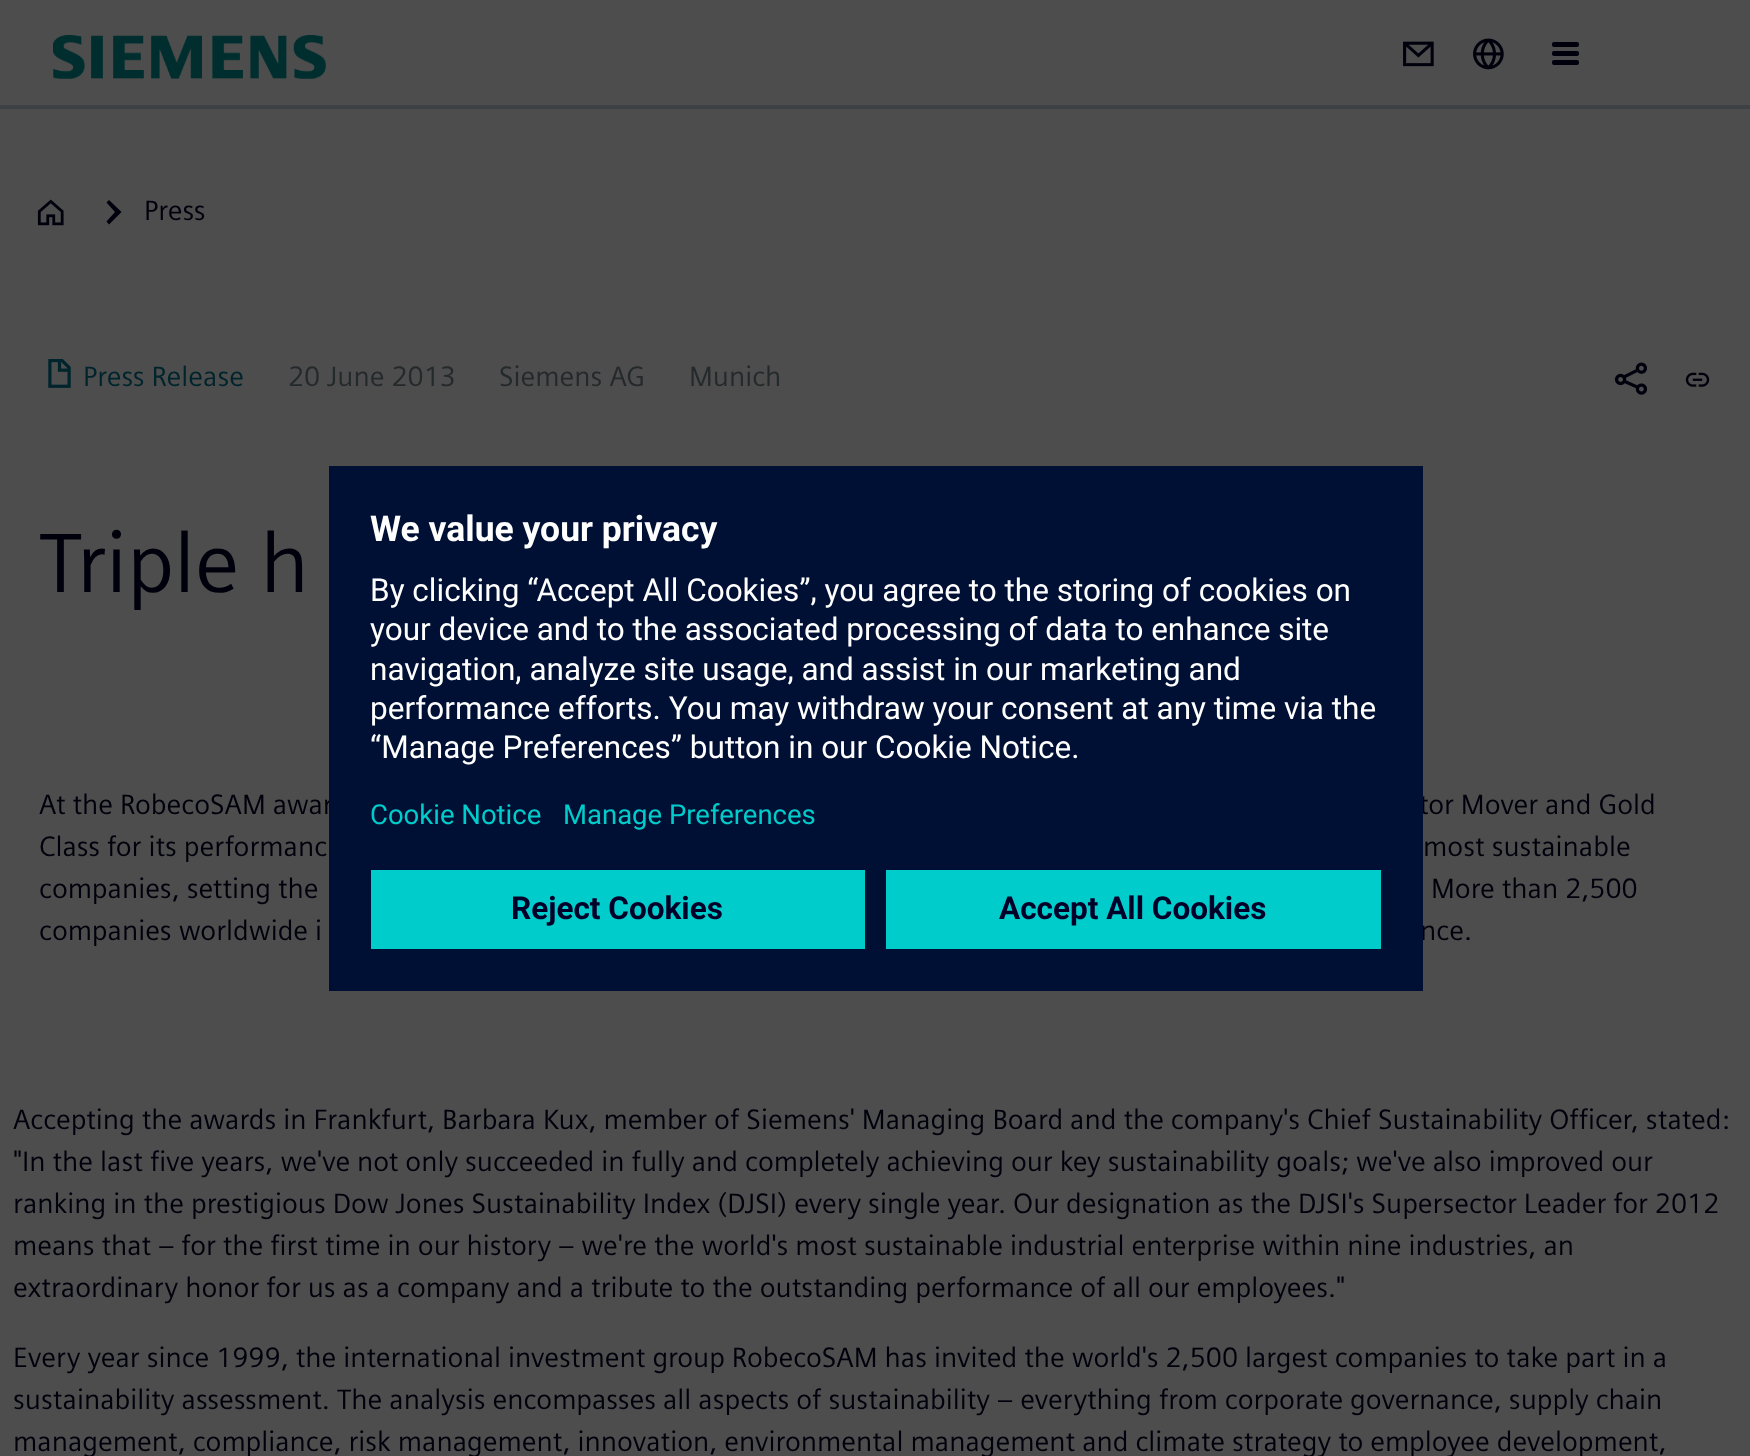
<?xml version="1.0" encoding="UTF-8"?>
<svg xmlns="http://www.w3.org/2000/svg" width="1750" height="1456">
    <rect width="100%" height="100%" fill="#4D4D4D"/>
    <rect x="0" y="105" width="1750" height="4" fill="#3E4144"/>
    <image x="53" y="35" width="273" height="44" href="img_01.png"/>
    <image x="1403" y="41" width="31" height="26" href="img_02.png"/>
    <image x="1473" y="38" width="31" height="32" href="img_03.png"/>
    <rect x="1552" y="42" width="27" height="5" rx="2" fill="#00000C"/>
    <rect x="1552" y="51" width="27" height="5" rx="2" fill="#00000C"/>
    <rect x="1552" y="60" width="27" height="5" rx="2" fill="#00000C"/>
    <image x="37" y="199" width="27" height="27" href="img_04.png"/>
    <path d="M 121.5 212 L 109 200 L 106.5 202.5 L 115 212 L 106.5 221.5 L 109 224.5 Z" fill="#00000C"/>
    <text x="144" y="220" font-family="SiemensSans" font-size="28" fill="#00000C">Press</text>
    <image x="48" y="359" width="23" height="29" href="img_05.png"/>
    <text x="83" y="386" font-family="SiemensSans" font-size="28" fill="#00242C">Press Release</text>
    <text x="288" y="386" font-family="SiemensSans" font-size="28" fill="#24292C">20 June 2013</text>
    <text x="499" y="386" font-family="SiemensSans" font-size="28" fill="#24292C">Siemens AG</text>
    <text x="689" y="386" font-family="SiemensSans" font-size="28" fill="#24292C">Munich</text>
    <image x="1614" y="362" width="33" height="33" href="img_06.png"/>
    <image x="1685" y="372" width="25" height="15" href="img_07.png"/>
    <text x="39" y="592" font-family="SiemensSans" font-size="84" fill="#00000C">Triple h</text>
    <text x="39" y="814" font-family="SiemensSans" font-size="28" fill="#00000C">At the RobecoSAM awar</text>
    <text x="1419" y="814" font-family="SiemensSans" font-size="28" fill="#00000C">tor Mover and Gold</text>
    <text x="39" y="856" font-family="SiemensSans" font-size="28" fill="#00000C">Class for its performanc</text>
    <text x="1423" y="856" font-family="SiemensSans" font-size="28" fill="#00000C">most sustainable</text>
    <text x="39" y="898" font-family="SiemensSans" font-size="28" fill="#00000C">companies, setting the</text>
    <text x="1431" y="898" font-family="SiemensSans" font-size="28" fill="#00000C">More than 2,500</text>
    <text x="39" y="940" font-family="SiemensSans" font-size="28" fill="#00000C">companies worldwide i</text>
    <text x="1420" y="940" font-family="SiemensSans" font-size="28" fill="#00000C">nce.</text>
    <text font-family="SiemensSans" font-size="28" fill="#00000C">
        <tspan x="13" y="1129">Accepting the awards in Frankfurt, Barbara Kux, member of Siemens' Managing Board and the company's Chief Sustainability Officer, stated:</tspan>
        <tspan x="13" y="1171">"In the last five years, we've not only succeeded in fully and completely achieving our key sustainability goals; we've also improved our</tspan>
        <tspan x="13" y="1213">ranking in the prestigious Dow Jones Sustainability Index (DJSI) every single year. Our designation as the DJSI's Supersector Leader for 2012</tspan>
        <tspan x="13" y="1255">means that – for the first time in our history – we're the world's most sustainable industrial enterprise within nine industries, an</tspan>
        <tspan x="13" y="1297">extraordinary honor for us as a company and a tribute to the outstanding performance of all our employees."</tspan>
    </text>
    <text font-family="SiemensSans" font-size="28" fill="#00000C">
        <tspan x="13" y="1367">Every year since 1999, the international investment group RobecoSAM has invited the world's 2,500 largest companies to take part in a</tspan>
        <tspan x="13" y="1409">sustainability assessment. The analysis encompasses all aspects of sustainability – everything from corporate governance, supply chain</tspan>
        <tspan x="13" y="1451">management, compliance, risk management, innovation, environmental management and climate strategy to employee development,</tspan>
    </text>
    <rect x="329" y="466" width="1094" height="525" fill="#001034"/>
    <text x="370" y="541" font-family="Roboto" font-size="35.5" font-weight="700" fill="#FFFFFF">We value your privacy</text>
    <text font-family="Roboto" font-size="31.5" fill="#FFFFFF">
        <tspan x="370" y="601">By clicking “Accept All Cookies”, you agree to the storing of cookies on</tspan>
        <tspan x="370" y="640">your device and to the associated processing of data to enhance site</tspan>
        <tspan x="370" y="680">navigation, analyze site usage, and assist in our marketing and</tspan>
        <tspan x="370" y="719">performance efforts. You may withdraw your consent at any time via the</tspan>
        <tspan x="370" y="758">“Manage Preferences” button in our Cookie Notice.</tspan>
    </text>
    <text x="370" y="824" font-family="Roboto" font-size="27.5" fill="#00CCCC">Cookie Notice</text>
    <text x="563" y="824" font-family="Roboto" font-size="27.5" fill="#00CCCC">Manage Preferences</text>
    <rect x="371" y="870" width="494" height="79" fill="#00CCCC"/>
    <text x="511" y="919" font-family="Roboto" font-size="31.5" font-weight="700" fill="#000028">Reject Cookies</text>
    <rect x="886" y="870" width="495" height="79" fill="#00CCCC"/>
    <text x="999" y="919" font-family="Roboto" font-size="31.5" font-weight="700" fill="#000028">Accept All Cookies</text>
</svg>
